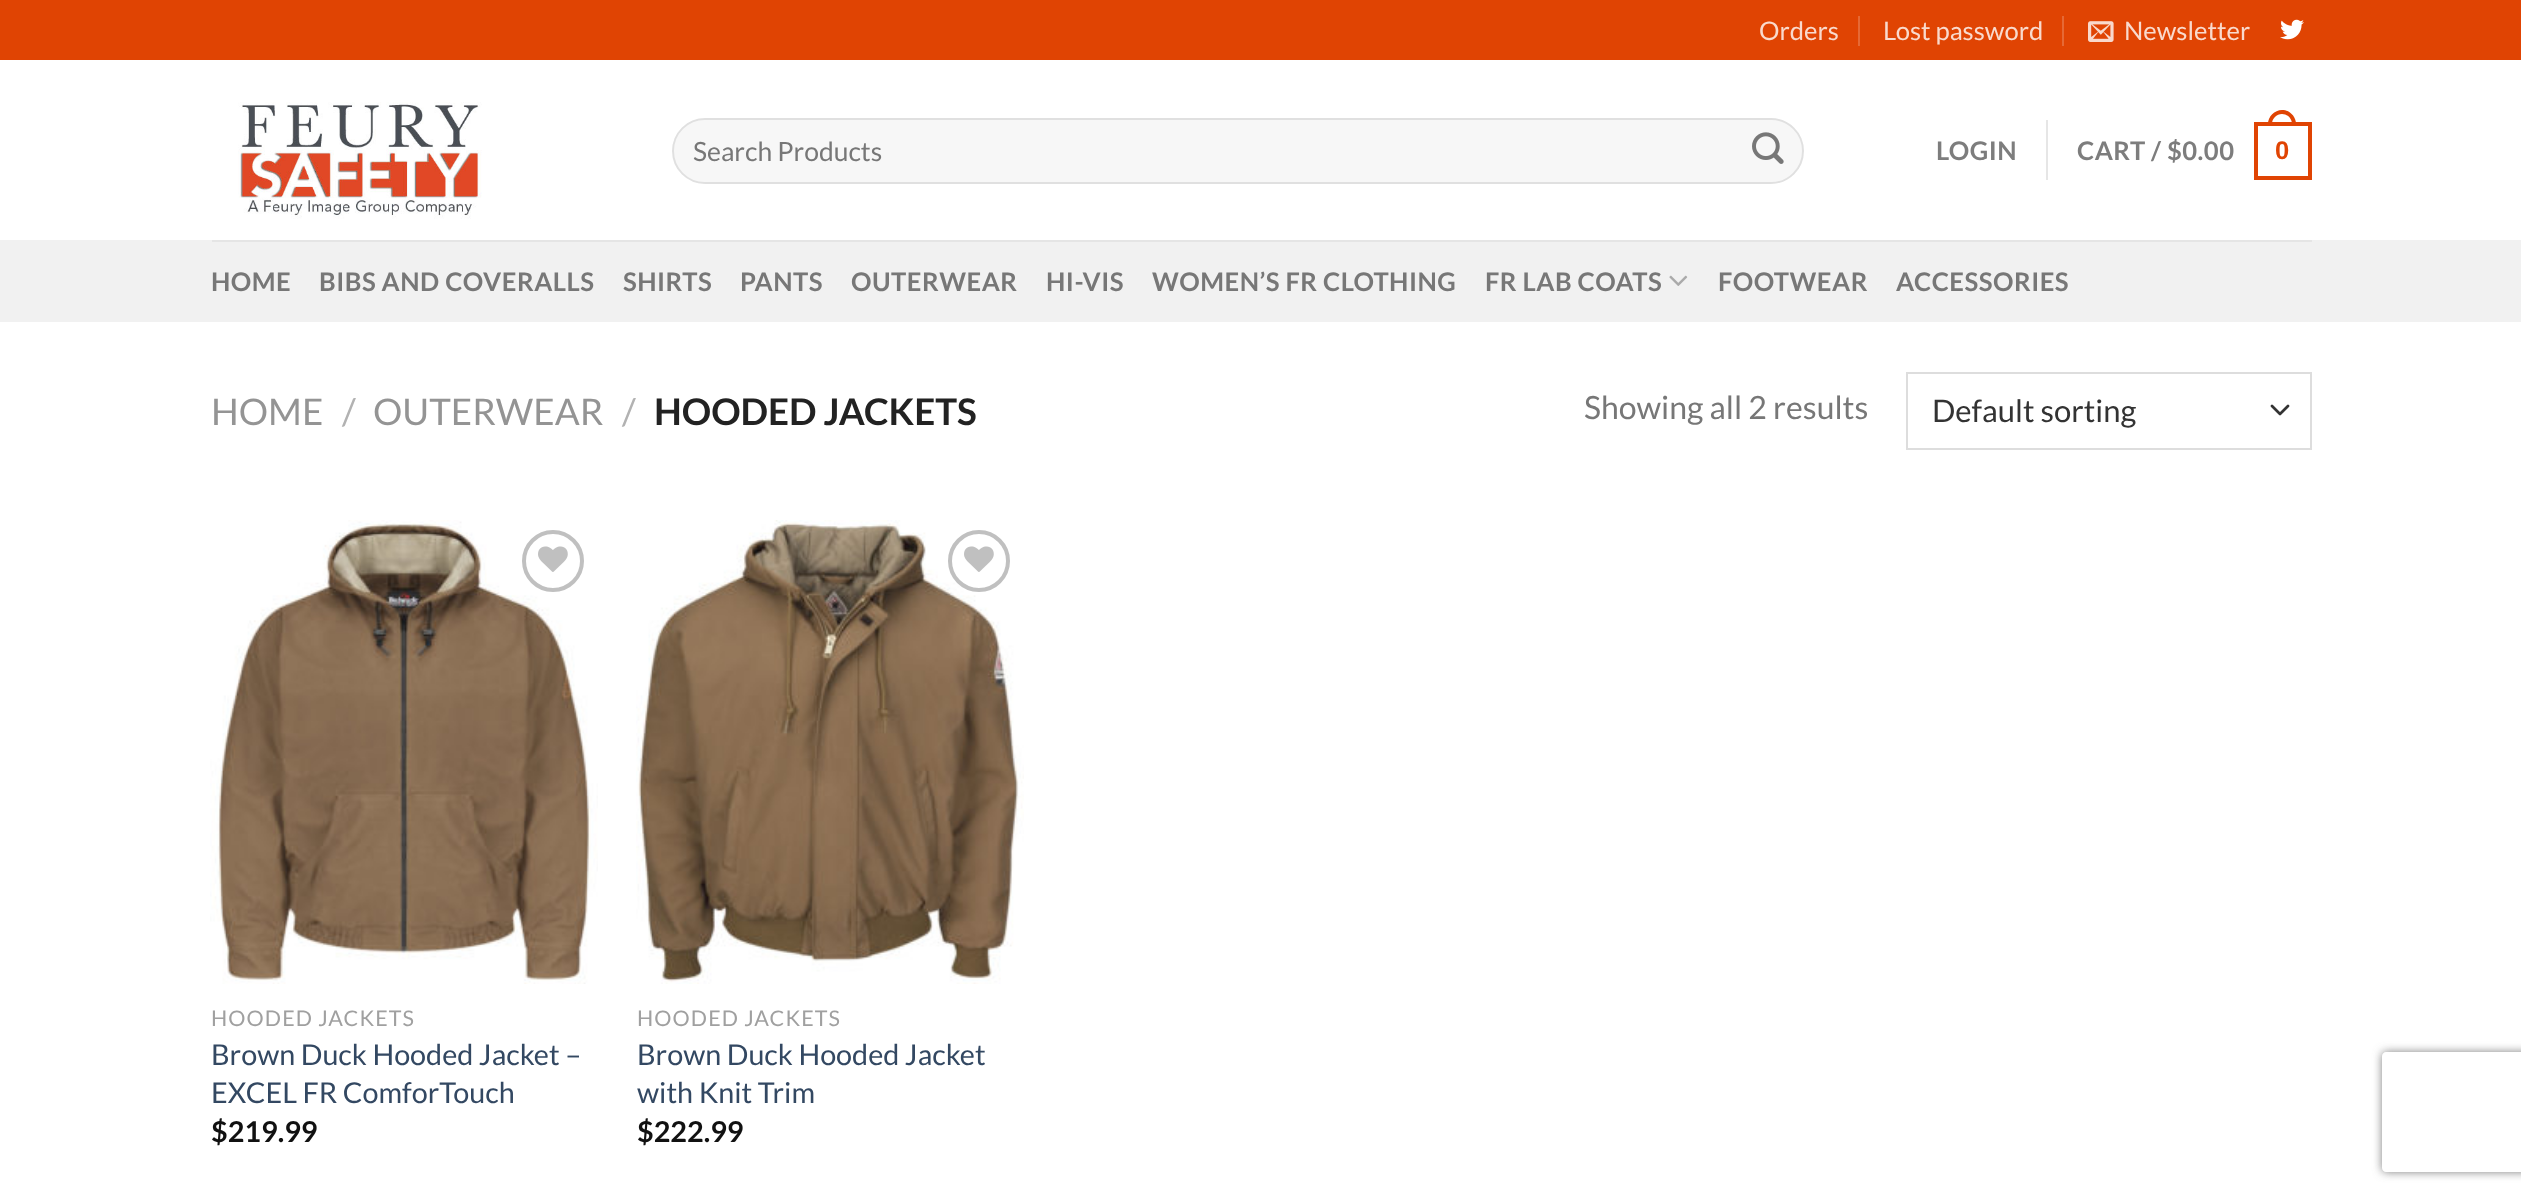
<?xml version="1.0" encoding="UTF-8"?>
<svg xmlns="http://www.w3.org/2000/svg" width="2521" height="1199">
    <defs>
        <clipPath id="clip1"><path d="M 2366 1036 H 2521 V 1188 H 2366 Z M 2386 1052 H 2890 C 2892 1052 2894 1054 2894 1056 V 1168 C 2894 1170 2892 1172 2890 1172 H 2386 C 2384 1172 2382 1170 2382 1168 V 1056 C 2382 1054 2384 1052 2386 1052 Z" clip-rule="evenodd"/></clipPath>
        <filter id="blur1" x="-50%" y="-200%" width="200%" height="500%"><feGaussianBlur stdDeviation="5"/></filter>
    </defs>
    <rect width="100%" height="100%" fill="#FFFFFF"/>
    <rect x="0" y="0" width="2521" height="60" fill="#E04403"/>
    <text x="1759" y="40" font-family="Lato" font-size="25.6" fill="#F9DACD">Orders</text>
    <rect x="1858" y="16" width="2" height="30" fill="#E66935"/>
    <text x="1883" y="40" font-family="Lato" font-size="25.6" fill="#F9DACD">Lost password</text>
    <rect x="2062" y="16" width="2" height="30" fill="#E66935"/>
    <image x="2088" y="21" width="26" height="21" href="img_01.png"/>
    <text x="2124" y="40" font-family="Lato" font-size="25.6" fill="#F9DACD">Newsletter</text>
    <image x="2280" y="19" width="24" height="21" href="img_02.png"/>
    <image x="238" y="102" width="244" height="117" href="img_03.png"/>
    <rect x="672" y="118" width="1132" height="66" rx="33" fill="#F7F7F7"/>
    <rect x="673" y="119" width="1130" height="64" rx="32" fill="none" stroke="#000000" stroke-opacity="0.09" stroke-width="2"/>
    <text x="693" y="161" font-family="Lato" font-size="26.5" fill="#777777">Search Products</text>
    <image x="1752" y="132" width="32" height="32" href="img_04.png"/>
    <text x="1936" y="160" font-family="Lato" font-size="25.6" font-weight="700" letter-spacing="0.5" fill="#7D7D7D">LOGIN</text>
    <rect x="2046" y="120" width="2" height="60" fill="#E6E6E6"/>
    <text x="2077" y="160" font-family="Lato" font-size="25.6" font-weight="700" letter-spacing="0.5" fill="#7D7D7D">CART / $0.00</text>
    <rect x="2256" y="124" width="54" height="54" fill="none" stroke="#E04403" stroke-width="4"/>
    <path d="M 2282 110 C 2289.5 110 2296 116.5 2296 124 V 126 H 2268 V 124 C 2268 116.5 2274.5 110 2282 110 Z M 2282 114 C 2287.5 114 2292 118.5 2292 124 V 126 H 2272 V 124 C 2272 118.5 2276.5 114 2282 114 Z" fill="#E04403" fill-rule="evenodd"/>
    <text x="2275" y="159" font-family="Liberation Sans" font-size="25.6" font-weight="700" letter-spacing="0.5" fill="#E04403">0</text>
    <rect x="0" y="240" width="2521" height="82" fill="#F1F1F1"/>
    <rect x="212" y="240" width="2100" height="2" fill="#E5E5E5"/>
    <text x="211" y="291" font-family="Lato" font-size="25.6" font-weight="700" letter-spacing="0.5" fill="#777777">HOME</text>
    <text x="319" y="291" font-family="Lato" font-size="25.6" font-weight="700" letter-spacing="0.5" fill="#777777">BIBS AND COVERALLS</text>
    <text x="623" y="291" font-family="Lato" font-size="25.6" font-weight="700" letter-spacing="0.5" fill="#777777">SHIRTS</text>
    <text x="740" y="291" font-family="Lato" font-size="25.6" font-weight="700" letter-spacing="0.5" fill="#777777">PANTS</text>
    <text x="851" y="291" font-family="Lato" font-size="25.6" font-weight="700" letter-spacing="0.5" fill="#777777">OUTERWEAR</text>
    <text x="1046" y="291" font-family="Lato" font-size="25.6" font-weight="700" letter-spacing="0.5" fill="#777777">HI-VIS</text>
    <text x="1152" y="291" font-family="Lato" font-size="25.6" font-weight="700" letter-spacing="0.5" fill="#777777">WOMEN’S FR CLOTHING</text>
    <text x="1485" y="291" font-family="Lato" font-size="25.6" font-weight="700" letter-spacing="0.5" fill="#777777">FR LAB COATS</text>
    <image x="1669" y="275" width="19" height="11" href="img_05.png"/>
    <text x="1718" y="291" font-family="Lato" font-size="25.6" font-weight="700" letter-spacing="0.5" fill="#777777">FOOTWEAR</text>
    <text x="1896" y="291" font-family="Lato" font-size="25.6" font-weight="700" letter-spacing="0.5" fill="#777777">ACCESSORIES</text>
    <text x="211" y="425" font-family="Lato" font-size="36.75" fill="#949494">HOME</text>
    <text x="342" y="425" font-family="Lato" font-size="36.75" fill="#B2B2B2">/</text>
    <text x="373" y="425" font-family="Lato" font-size="36.75" fill="#949494">OUTERWEAR</text>
    <text x="622" y="425" font-family="Lato" font-size="36.75" fill="#B2B2B2">/</text>
    <text x="654" y="425" font-family="Lato" font-size="36.75" font-weight="700" fill="#222222">HOODED JACKETS</text>
    <text x="1584" y="419" font-family="Lato" font-size="32" fill="#777777">Showing all 2 results</text>
    <path d="M 2272 406 L 2280 414 L 2288 406" fill="none" stroke="#333333" stroke-width="2.7" stroke-linecap="round" stroke-linejoin="round"/>
    <rect x="1907" y="373" width="404" height="76" fill="none" stroke="#DDDDDD" stroke-width="2"/>
    <text x="1932" y="422" font-family="Lato" font-size="31" fill="#333333">Default sorting</text>
    <image x="210" y="520" width="388" height="464" href="img_06.png"/>
    <circle cx="553" cy="561" r="29" fill="none" stroke="#C0C0C0" stroke-width="4"/>
    <image x="538" y="546" width="30" height="26" href="img_07.png"/>
    <text x="211" y="1026" font-family="Lato" font-size="21.5" letter-spacing="1.1" fill="#A0A0A0">HOODED JACKETS</text>
    <text font-family="Lato" font-size="28.75" fill="#334862">
        <tspan x="211" y="1065">Brown Duck Hooded Jacket –</tspan>
        <tspan x="211" y="1103">EXCEL FR ComforTouch</tspan>
    </text>
    <text x="211" y="1142" font-family="Lato" font-size="28.75" font-weight="700" fill="#111111">$219.99</text>
    <image x="636" y="520" width="388" height="464" href="img_08.png"/>
    <circle cx="979" cy="561" r="29" fill="none" stroke="#C0C0C0" stroke-width="4"/>
    <image x="964" y="546" width="30" height="26" href="img_07.png"/>
    <text x="637" y="1026" font-family="Lato" font-size="21.5" letter-spacing="1.1" fill="#A0A0A0">HOODED JACKETS</text>
    <text font-family="Lato" font-size="28.75" fill="#334862">
        <tspan x="637" y="1065">Brown Duck Hooded Jacket</tspan>
        <tspan x="637" y="1103">with Knit Trim</tspan>
    </text>
    <text x="637" y="1142" font-family="Lato" font-size="28.75" font-weight="700" fill="#111111">$222.99</text>
    <g clip-path="url(#clip1)">
        <rect x="2382" y="1052" width="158" height="120" rx="4" fill="#808080" filter="url(#blur1)"/>
    </g>
</svg>
